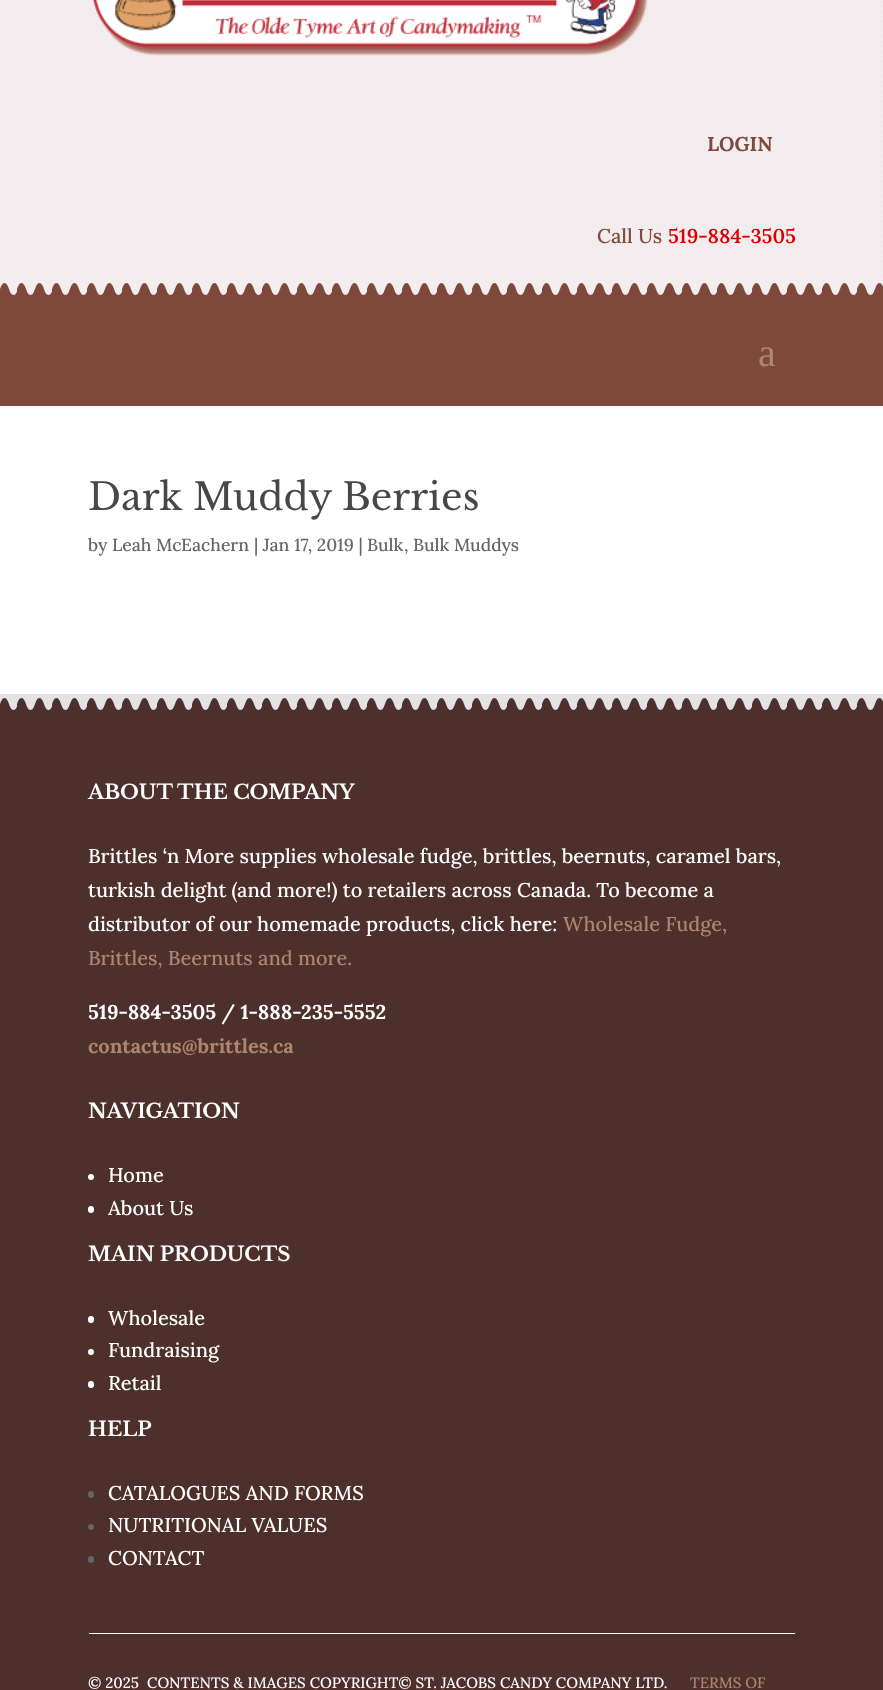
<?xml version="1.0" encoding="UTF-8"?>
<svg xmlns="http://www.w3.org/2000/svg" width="883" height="1690">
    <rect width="100%" height="100%" fill="#FFFFFF"/>
    <rect x="0" y="0" width="883" height="279" fill="#F3EDEF"/>
    <image x="2" y="1" width="881" height="276" href="img_01.png"/>
    <image x="92" y="0" width="556" height="56" href="img_02.png"/>
    <text x="707" y="151" font-family="Lora" font-size="20" font-weight="700" fill="#7E4A3B">LOGIN</text>
    <text x="597" y="243" font-family="Lora" font-size="20" font-weight="500" fill="#7E4A3B">Call Us</text>
    <text x="668" y="243" font-family="Lora" font-size="20" font-weight="600" fill="#DE0000">519-884-3505</text>
    <rect x="0" y="283" width="883" height="123" fill="#7E493B"/>
    <image x="0" y="279" width="883" height="16" href="img_03.png"/>
    <text x="758" y="366" font-family="Liberation Serif" font-size="40" fill="#AE856E">a</text>
    <text x="88" y="510" font-family="Libre Baskerville" font-size="37.5" fill="#484747">Dark Muddy Berries</text>
    <text x="88" y="551" font-family="Lora" font-size="17.5" font-weight="500" fill="#646565">by</text>
    <text x="112" y="551" font-family="Lora" font-size="17.5" font-weight="500" fill="#646565">Leah McEachern</text>
    <text x="254" y="551" font-family="Lora" font-size="17.5" font-weight="500" fill="#646565">| Jan 17, 2019 |</text>
    <text x="367" y="551" font-family="Lora" font-size="17.5" font-weight="500" fill="#646565">Bulk</text>
    <text x="404" y="551" font-family="Lora" font-size="17.5" font-weight="500" fill="#646565">,</text>
    <text x="413" y="551" font-family="Lora" font-size="17.5" font-weight="500" fill="#646565">Bulk Muddys</text>
    <rect x="0" y="698" width="883" height="992" fill="#4D2F2C"/>
    <image x="0" y="694" width="883" height="16" href="img_04.png"/>
    <text x="88" y="799" font-family="Libre Baskerville" font-size="20" font-weight="700" fill="#FFFFFF">ABOUT THE COMPANY</text>
    <text font-family="Lora" font-size="20" font-weight="500" fill="#FFFFFF">
        <tspan x="88" y="863">Brittles ‘n More supplies wholesale fudge, brittles, beernuts, caramel bars,</tspan>
        <tspan x="88" y="897">turkish delight (and more!) to retailers across Canada. To become a</tspan>
        <tspan x="88" y="931">distributor of our homemade products, click here:</tspan>
    </text>
    <text x="563" y="931" font-family="Lora" font-size="20" font-weight="500" fill="#AE856E">Wholesale Fudge,</text>
    <text x="88" y="965" font-family="Lora" font-size="20" font-weight="500" fill="#AE856E">Brittles, Beernuts and more.</text>
    <text x="88" y="1019" font-family="Lora" font-size="20" font-weight="700" fill="#FFFFFF">519-884-3505 / 1-888-235-5552</text>
    <text x="88" y="1053" font-family="Lora" font-size="20" font-weight="700" fill="#AE856E">contactus@brittles.ca</text>
    <text x="88" y="1118" font-family="Libre Baskerville" font-size="20" font-weight="700" fill="#FFFFFF">NAVIGATION</text>
    <circle cx="91" cy="1177" r="3" fill="#FFFFFF"/>
    <text x="108" y="1182" font-family="Lora" font-size="20" font-weight="500" fill="#FFFFFF">Home</text>
    <rect x="88" y="1206" width="6" height="7" rx="3" fill="#FFFFFF"/>
    <text x="108" y="1215" font-family="Lora" font-size="20" font-weight="500" fill="#FFFFFF">About Us</text>
    <text x="88" y="1261" font-family="Libre Baskerville" font-size="20" font-weight="700" fill="#FFFFFF">MAIN PRODUCTS</text>
    <rect x="88" y="1316" width="6" height="7" rx="3" fill="#FFFFFF"/>
    <text x="108" y="1325" font-family="Lora" font-size="20" font-weight="500" fill="#FFFFFF">Wholesale</text>
    <circle cx="91" cy="1352" r="3" fill="#FFFFFF"/>
    <text x="108" y="1357" font-family="Lora" font-size="20" font-weight="500" fill="#FFFFFF">Fundraising</text>
    <rect x="88" y="1381" width="6" height="7" rx="3" fill="#FFFFFF"/>
    <text x="108" y="1390" font-family="Lora" font-size="20" font-weight="500" fill="#FFFFFF">Retail</text>
    <text x="88" y="1436" font-family="Libre Baskerville" font-size="20" font-weight="700" fill="#FFFFFF">HELP</text>
    <rect x="88" y="1491" width="6" height="7" rx="3" fill="#646565"/>
    <text x="108" y="1500" font-family="Lora" font-size="20" font-weight="500" fill="#FFFFFF">CATALOGUES AND FORMS</text>
    <circle cx="91" cy="1527" r="3" fill="#646565"/>
    <text x="108" y="1532" font-family="Lora" font-size="20" font-weight="500" fill="#FFFFFF">NUTRITIONAL VALUES</text>
    <rect x="88" y="1556" width="6" height="7" rx="3" fill="#646565"/>
    <text x="108" y="1565" font-family="Lora" font-size="20" font-weight="500" fill="#FFFFFF">CONTACT</text>
    <rect x="89" y="1633" width="706" height="1" fill="#FFFFFF"/>
    <text x="88" y="1688" font-family="Lora" font-size="15" font-weight="500" fill="#FFFFFF">© 2025</text>
    <text x="147" y="1688" font-family="Lora" font-size="15" font-weight="500" fill="#FFFFFF">CONTENTS &amp; IMAGES COPYRIGHT© ST. JACOBS CANDY COMPANY LTD.</text>
    <text x="690" y="1688" font-family="Lora" font-size="15" font-weight="500" fill="#AE856E">TERMS OF</text>
</svg>
